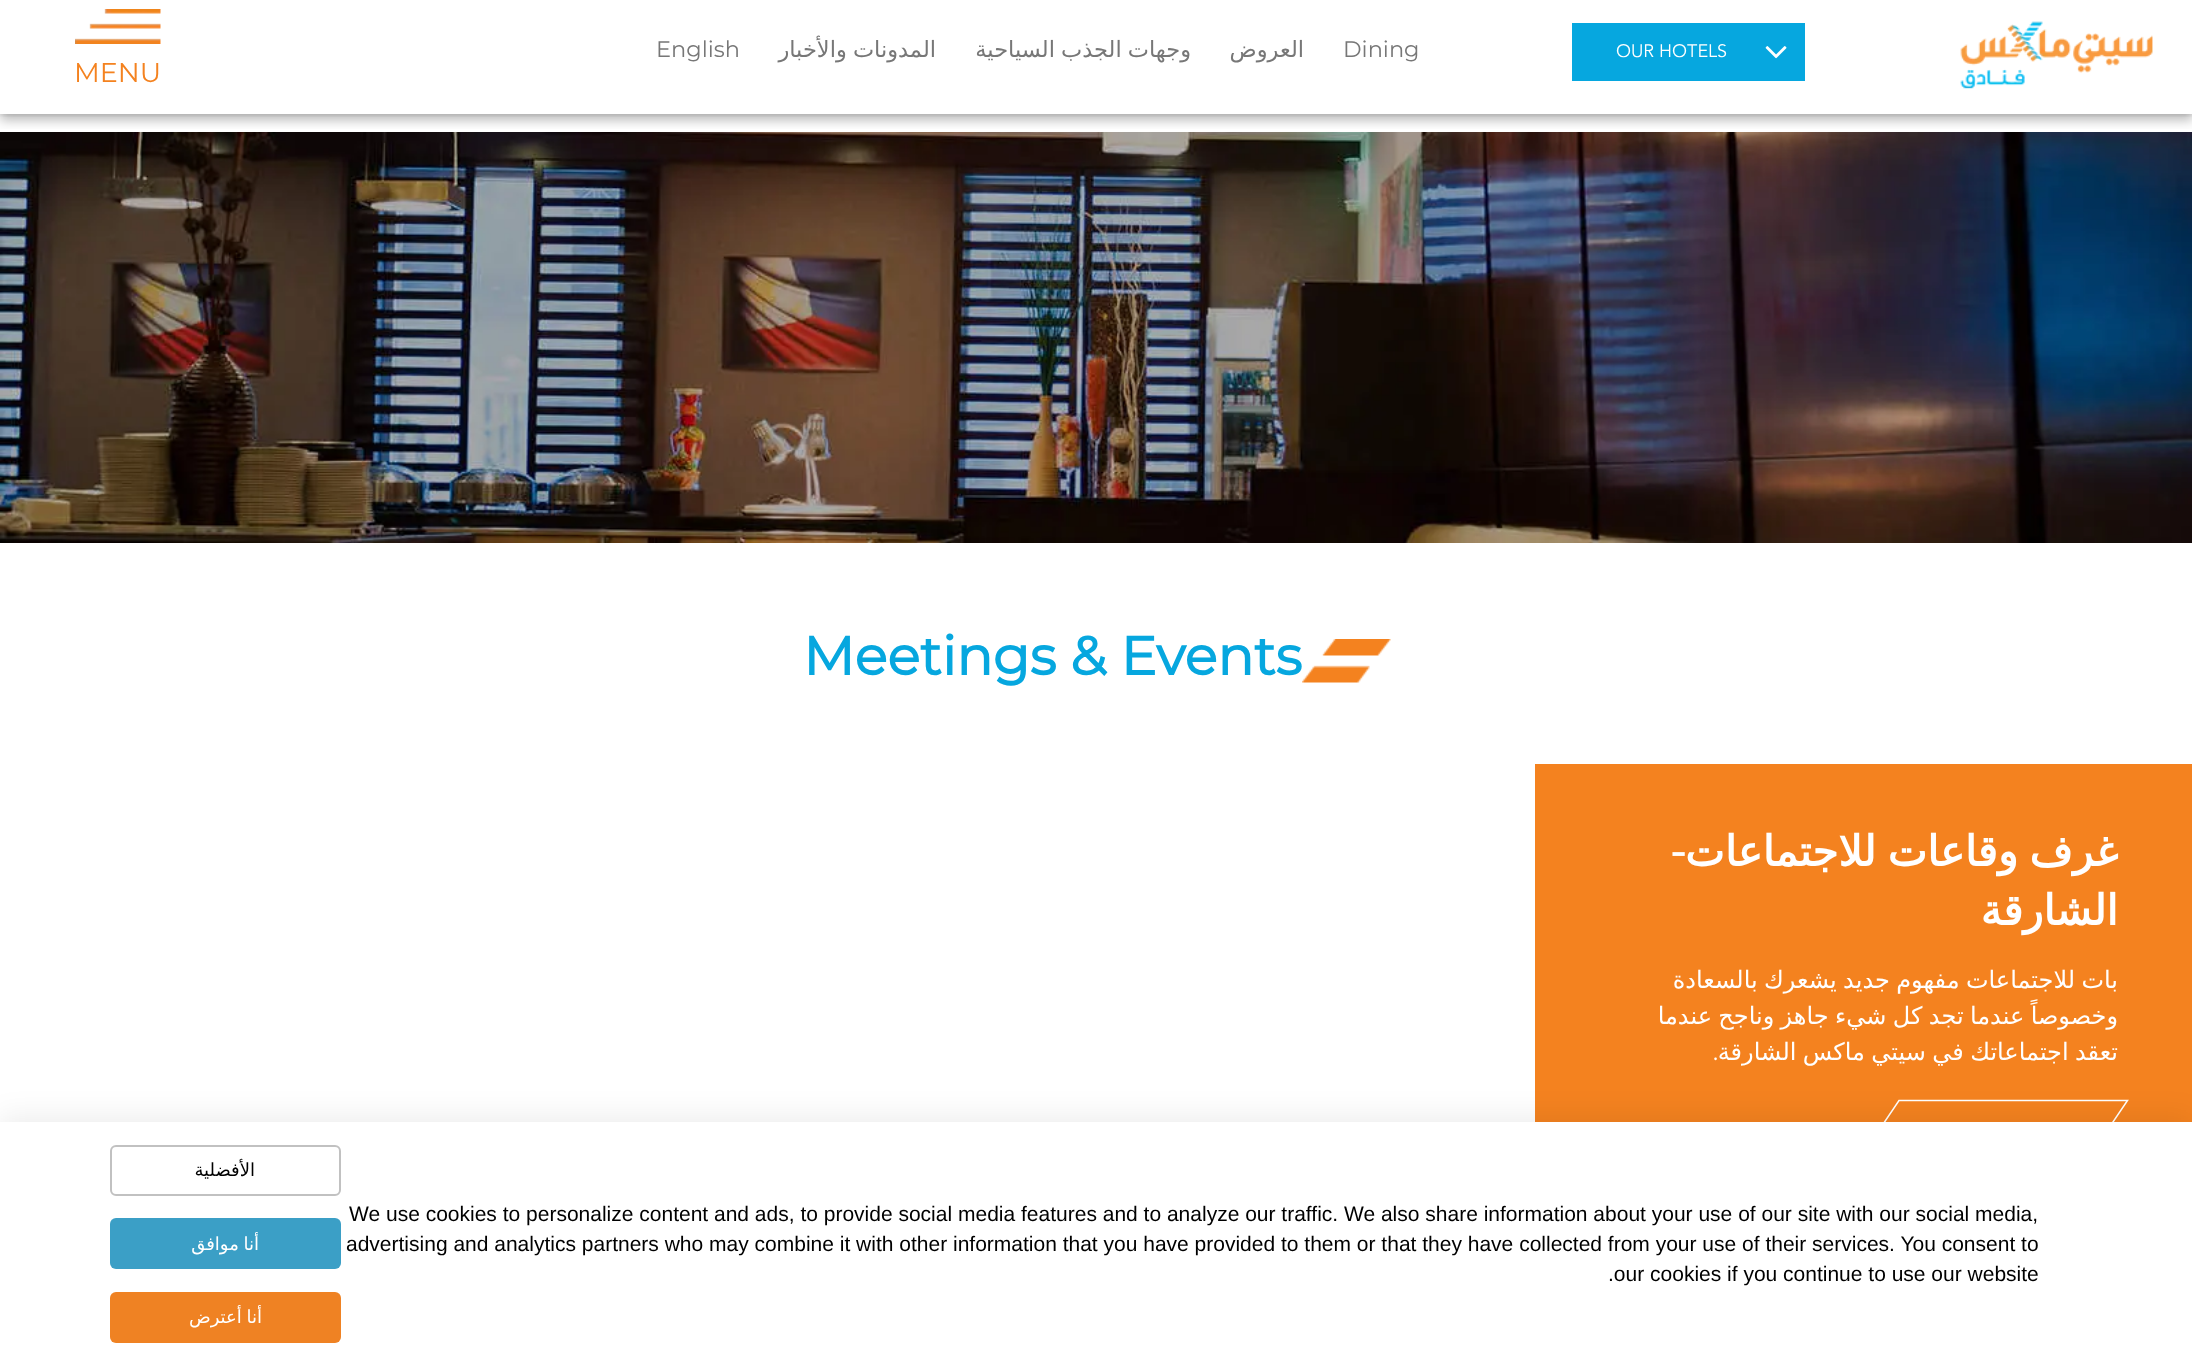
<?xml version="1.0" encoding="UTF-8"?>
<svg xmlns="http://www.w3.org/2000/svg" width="2192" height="1365">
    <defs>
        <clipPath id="clip1"><rect x="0" y="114" width="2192" height="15"/></clipPath>
        <filter id="blur1" x="-50%" y="-200%" width="200%" height="500%"><feGaussianBlur stdDeviation="6"/></filter>
        <clipPath id="clip2"><rect x="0" y="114" width="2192" height="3"/></clipPath>
        <filter id="blur2" x="-50%" y="-200%" width="200%" height="500%"><feGaussianBlur stdDeviation="3"/></filter>
        <filter id="blur3" x="-50%" y="-200%" width="200%" height="500%"><feGaussianBlur stdDeviation="14"/></filter>
    </defs>
    <rect width="100%" height="100%" fill="#FFFFFF"/>
    <image x="0" y="132" width="2192" height="411" href="img_04.png"/>
    <g clip-path="url(#clip1)">
        <rect x="0" y="6" width="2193" height="114" fill="#000000" fill-opacity="0.28" filter="url(#blur1)"/>
    </g>
    <g clip-path="url(#clip2)">
        <rect x="0" y="0" width="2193" height="114" fill="#000000" fill-opacity="0.14" filter="url(#blur2)"/>
    </g>
    <text x="656" y="57" font-family="Montserrat" font-size="22.5" font-weight="100" fill="#777777">English</text>
    <text x="936" y="57" word-spacing="-1" font-family="DejaVu Sans" font-size="22.5" direction="rtl" fill="#777777">المدونات والأخبار</text>
    <text x="1191" y="57" word-spacing="-1" font-family="DejaVu Sans" font-size="22.5" direction="rtl" fill="#777777">وجهات الجذب السياحية</text>
    <text x="1304" y="57" font-family="DejaVu Sans" font-size="22.5" direction="rtl" fill="#777777">العروض</text>
    <text x="1343" y="57" font-family="Montserrat" font-size="22.5" font-weight="100" fill="#777777">Dining</text>
    <rect x="1572" y="23" width="233" height="58" fill="#06A7DF"/>
    <text x="1616" y="57" font-family="'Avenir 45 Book'" font-size="18" fill="#FFFFFF">OUR HOTELS</text>
    <image x="1765" y="46" width="22" height="13" href="img_01.png"/>
    <image x="1960" y="21" width="193" height="68" href="img_02.png"/>
    <image x="75" y="9" width="86" height="35" href="img_03.png"/>
    <text x="74" y="82" font-family="Montserrat" font-size="27" font-weight="100" fill="#F4821F">MENU</text>
    <text x="803" y="675" font-family="Montserrat" font-size="54" font-weight="700" fill="#06A7DF">Meetings &amp; Events</text>
    <image x="1302" y="639" width="89" height="44" href="img_05.png"/>
    <rect x="1535" y="764" width="657" height="358" fill="#F4821F"/>
    <text x="1686" y="866" font-family="Montserrat" font-size="42" font-weight="700" direction="rtl" fill="#FFFFFF">-</text>
    <text font-family="DejaVu Sans" font-size="42" font-weight="700" direction="rtl" fill="#FFFFFF">
        <tspan x="2118" y="866" word-spacing="-2">غرف وقاعات للاجتماعات</tspan>
        <tspan x="2118" y="925">الشارقة</tspan>
    </text>
    <text font-family="DejaVu Sans" font-size="24" direction="rtl" fill="#FFFFFF">
        <tspan x="2118" y="988" word-spacing="-1.25">بات للاجتماعات مفهوم جديد يشعرك بالسعادة</tspan>
        <tspan x="2118" y="1024" word-spacing="-1.25">وخصوصاً عندما تجد كل شيء جاهز وناجح عندما</tspan>
    </text>
    <text x="1718" y="1060" font-family="Montserrat" font-size="24" font-weight="100" direction="rtl" fill="#FFFFFF">.</text>
    <text x="2118" y="1060" word-spacing="-1.25" font-family="DejaVu Sans" font-size="24" direction="rtl" fill="#FFFFFF">تعقد اجتماعاتك في سيتي ماكس الشارقة</text>
    <path d="M 1899 1100.5 H 2127.5 L 2086 1162 H 1857.5 Z" fill="none" stroke="#FFFFFF" stroke-width="1.5"/>
    <rect x="0" y="1116" width="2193" height="243" fill="#000000" fill-opacity="0.07" filter="url(#blur3)"/>
    <rect x="0" y="1122" width="2192" height="243" fill="#FFFFFF"/>
    <rect x="111" y="1146" width="229" height="49" rx="5" fill="none" stroke="#C1C1C1" stroke-width="2"/>
    <text x="255" y="1176" font-family="DejaVu Sans" font-size="18" direction="rtl" fill="#000000">الأفضلية</text>
    <rect x="110" y="1218" width="231" height="51" rx="6" fill="#3B9FC6"/>
    <text x="259" y="1250" word-spacing="-1" font-family="DejaVu Sans" font-size="18" direction="rtl" fill="#FFFFFF">أنا موافق</text>
    <rect x="110" y="1292" width="231" height="51" rx="6" fill="#EF8223"/>
    <text x="262" y="1323" word-spacing="-1" font-family="DejaVu Sans" font-size="18" direction="rtl" fill="#FFFFFF">أنا أعترض</text>
    <text x="349" y="1221" font-family="Liberation Sans" font-size="21" fill="#000000">We use cookies to personalize content and ads, to provide social media features and to analyze our traffic. We also share information about your use of our site with our social media,</text>
    <text x="346" y="1251" font-family="Liberation Sans" font-size="21" fill="#000000">advertising and analytics partners who may combine it with other information that you have provided to them or that they have collected from your use of their services. You consent to</text>
    <text x="1608" y="1281" font-family="Liberation Sans" font-size="21" fill="#000000">.our cookies if you continue to use our website</text>
</svg>
